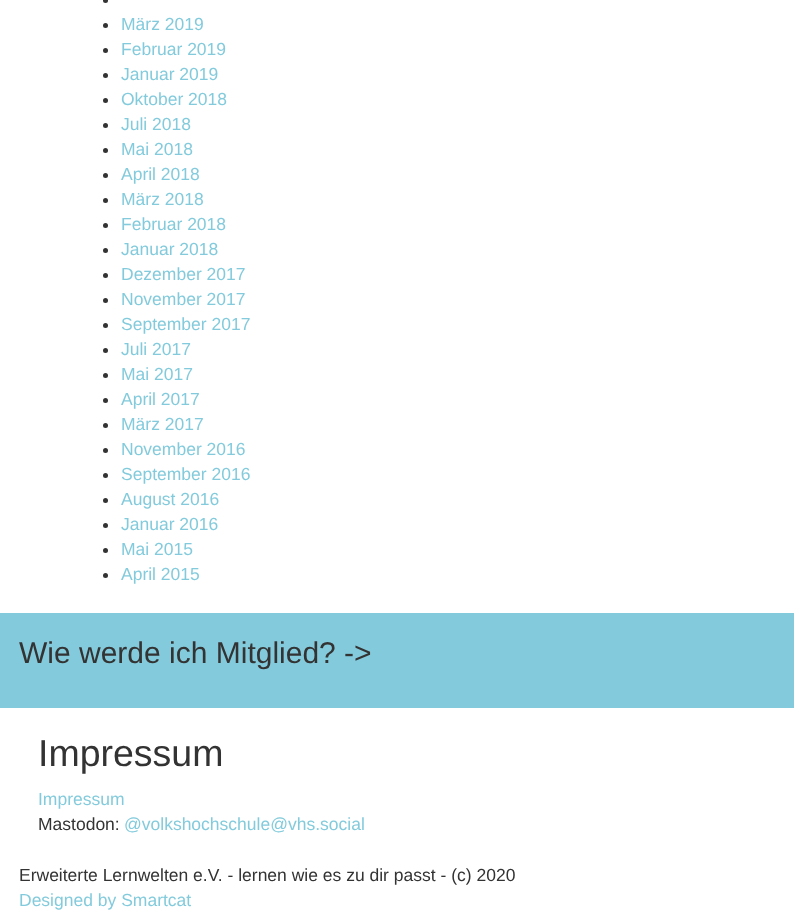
<?xml version="1.0" encoding="UTF-8"?>
<svg xmlns="http://www.w3.org/2000/svg" width="794" height="913">
    <rect width="100%" height="100%" fill="#FFFFFF"/>
    <circle cx="105.5" cy="0.5" r="2.5" fill="#333333"/>
    <circle cx="105.5" cy="25.5" r="2.5" fill="#333333"/>
    <text x="121" y="30" font-family="Liberation Sans" font-size="17.5" fill="#83CBDC">März 2019</text>
    <circle cx="105.5" cy="50.5" r="2.5" fill="#333333"/>
    <text x="121" y="55" font-family="Liberation Sans" font-size="17.5" fill="#83CBDC">Februar 2019</text>
    <circle cx="105.5" cy="75.5" r="2.5" fill="#333333"/>
    <text x="121" y="80" font-family="Liberation Sans" font-size="17.5" fill="#83CBDC">Januar 2019</text>
    <circle cx="105.5" cy="100.5" r="2.5" fill="#333333"/>
    <text x="121" y="105" font-family="Liberation Sans" font-size="17.5" fill="#83CBDC">Oktober 2018</text>
    <circle cx="105.5" cy="125.5" r="2.5" fill="#333333"/>
    <text x="121" y="130" font-family="Liberation Sans" font-size="17.5" fill="#83CBDC">Juli 2018</text>
    <circle cx="105.5" cy="150.5" r="2.5" fill="#333333"/>
    <text x="121" y="155" font-family="Liberation Sans" font-size="17.5" fill="#83CBDC">Mai 2018</text>
    <circle cx="105.5" cy="175.5" r="2.5" fill="#333333"/>
    <text x="121" y="180" font-family="Liberation Sans" font-size="17.5" fill="#83CBDC">April 2018</text>
    <circle cx="105.5" cy="200.5" r="2.5" fill="#333333"/>
    <text x="121" y="205" font-family="Liberation Sans" font-size="17.5" fill="#83CBDC">März 2018</text>
    <circle cx="105.5" cy="225.5" r="2.5" fill="#333333"/>
    <text x="121" y="230" font-family="Liberation Sans" font-size="17.5" fill="#83CBDC">Februar 2018</text>
    <circle cx="105.5" cy="250.5" r="2.5" fill="#333333"/>
    <text x="121" y="255" font-family="Liberation Sans" font-size="17.5" fill="#83CBDC">Januar 2018</text>
    <circle cx="105.5" cy="275.5" r="2.5" fill="#333333"/>
    <text x="121" y="280" font-family="Liberation Sans" font-size="17.5" fill="#83CBDC">Dezember 2017</text>
    <circle cx="105.5" cy="300.5" r="2.5" fill="#333333"/>
    <text x="121" y="305" font-family="Liberation Sans" font-size="17.5" fill="#83CBDC">November 2017</text>
    <circle cx="105.5" cy="325.5" r="2.5" fill="#333333"/>
    <text x="121" y="330" font-family="Liberation Sans" font-size="17.5" fill="#83CBDC">September 2017</text>
    <circle cx="105.5" cy="350.5" r="2.5" fill="#333333"/>
    <text x="121" y="355" font-family="Liberation Sans" font-size="17.5" fill="#83CBDC">Juli 2017</text>
    <circle cx="105.5" cy="375.5" r="2.5" fill="#333333"/>
    <text x="121" y="380" font-family="Liberation Sans" font-size="17.5" fill="#83CBDC">Mai 2017</text>
    <circle cx="105.5" cy="400.5" r="2.5" fill="#333333"/>
    <text x="121" y="405" font-family="Liberation Sans" font-size="17.5" fill="#83CBDC">April 2017</text>
    <circle cx="105.5" cy="425.5" r="2.5" fill="#333333"/>
    <text x="121" y="430" font-family="Liberation Sans" font-size="17.5" fill="#83CBDC">März 2017</text>
    <circle cx="105.5" cy="450.5" r="2.5" fill="#333333"/>
    <text x="121" y="455" font-family="Liberation Sans" font-size="17.5" fill="#83CBDC">November 2016</text>
    <circle cx="105.5" cy="475.5" r="2.5" fill="#333333"/>
    <text x="121" y="480" font-family="Liberation Sans" font-size="17.5" fill="#83CBDC">September 2016</text>
    <circle cx="105.5" cy="500.5" r="2.5" fill="#333333"/>
    <text x="121" y="505" font-family="Liberation Sans" font-size="17.5" fill="#83CBDC">August 2016</text>
    <circle cx="105.5" cy="525.5" r="2.5" fill="#333333"/>
    <text x="121" y="530" font-family="Liberation Sans" font-size="17.5" fill="#83CBDC">Januar 2016</text>
    <circle cx="105.5" cy="550.5" r="2.5" fill="#333333"/>
    <text x="121" y="555" font-family="Liberation Sans" font-size="17.5" fill="#83CBDC">Mai 2015</text>
    <circle cx="105.5" cy="575.5" r="2.5" fill="#333333"/>
    <text x="121" y="580" font-family="Liberation Sans" font-size="17.5" fill="#83CBDC">April 2015</text>
    <rect x="0" y="613" width="794" height="95" fill="#83CBDC"/>
    <text x="19" y="663" font-family="Liberation Sans" font-size="30" fill="#333333">Wie werde ich Mitglied? -&gt;</text>
    <text x="38" y="766" font-family="Liberation Sans" font-size="37.5" fill="#333333">Impressum</text>
    <text x="38" y="805" font-family="Liberation Sans" font-size="17.5" fill="#83CBDC">Impressum</text>
    <text x="38" y="830" font-family="Liberation Sans" font-size="17.5" fill="#333333">Mastodon:</text>
    <text x="124" y="830" font-family="Liberation Sans" font-size="17.5" fill="#83CBDC">@volkshochschule@vhs.social</text>
    <text x="19" y="881" font-family="Liberation Sans" font-size="17.5" fill="#333333">Erweiterte Lernwelten e.V. - lernen wie es zu dir passt - (c) 2020</text>
    <text x="19" y="906" font-family="Liberation Sans" font-size="17.5" fill="#83CBDC">Designed by Smartcat</text>
</svg>
